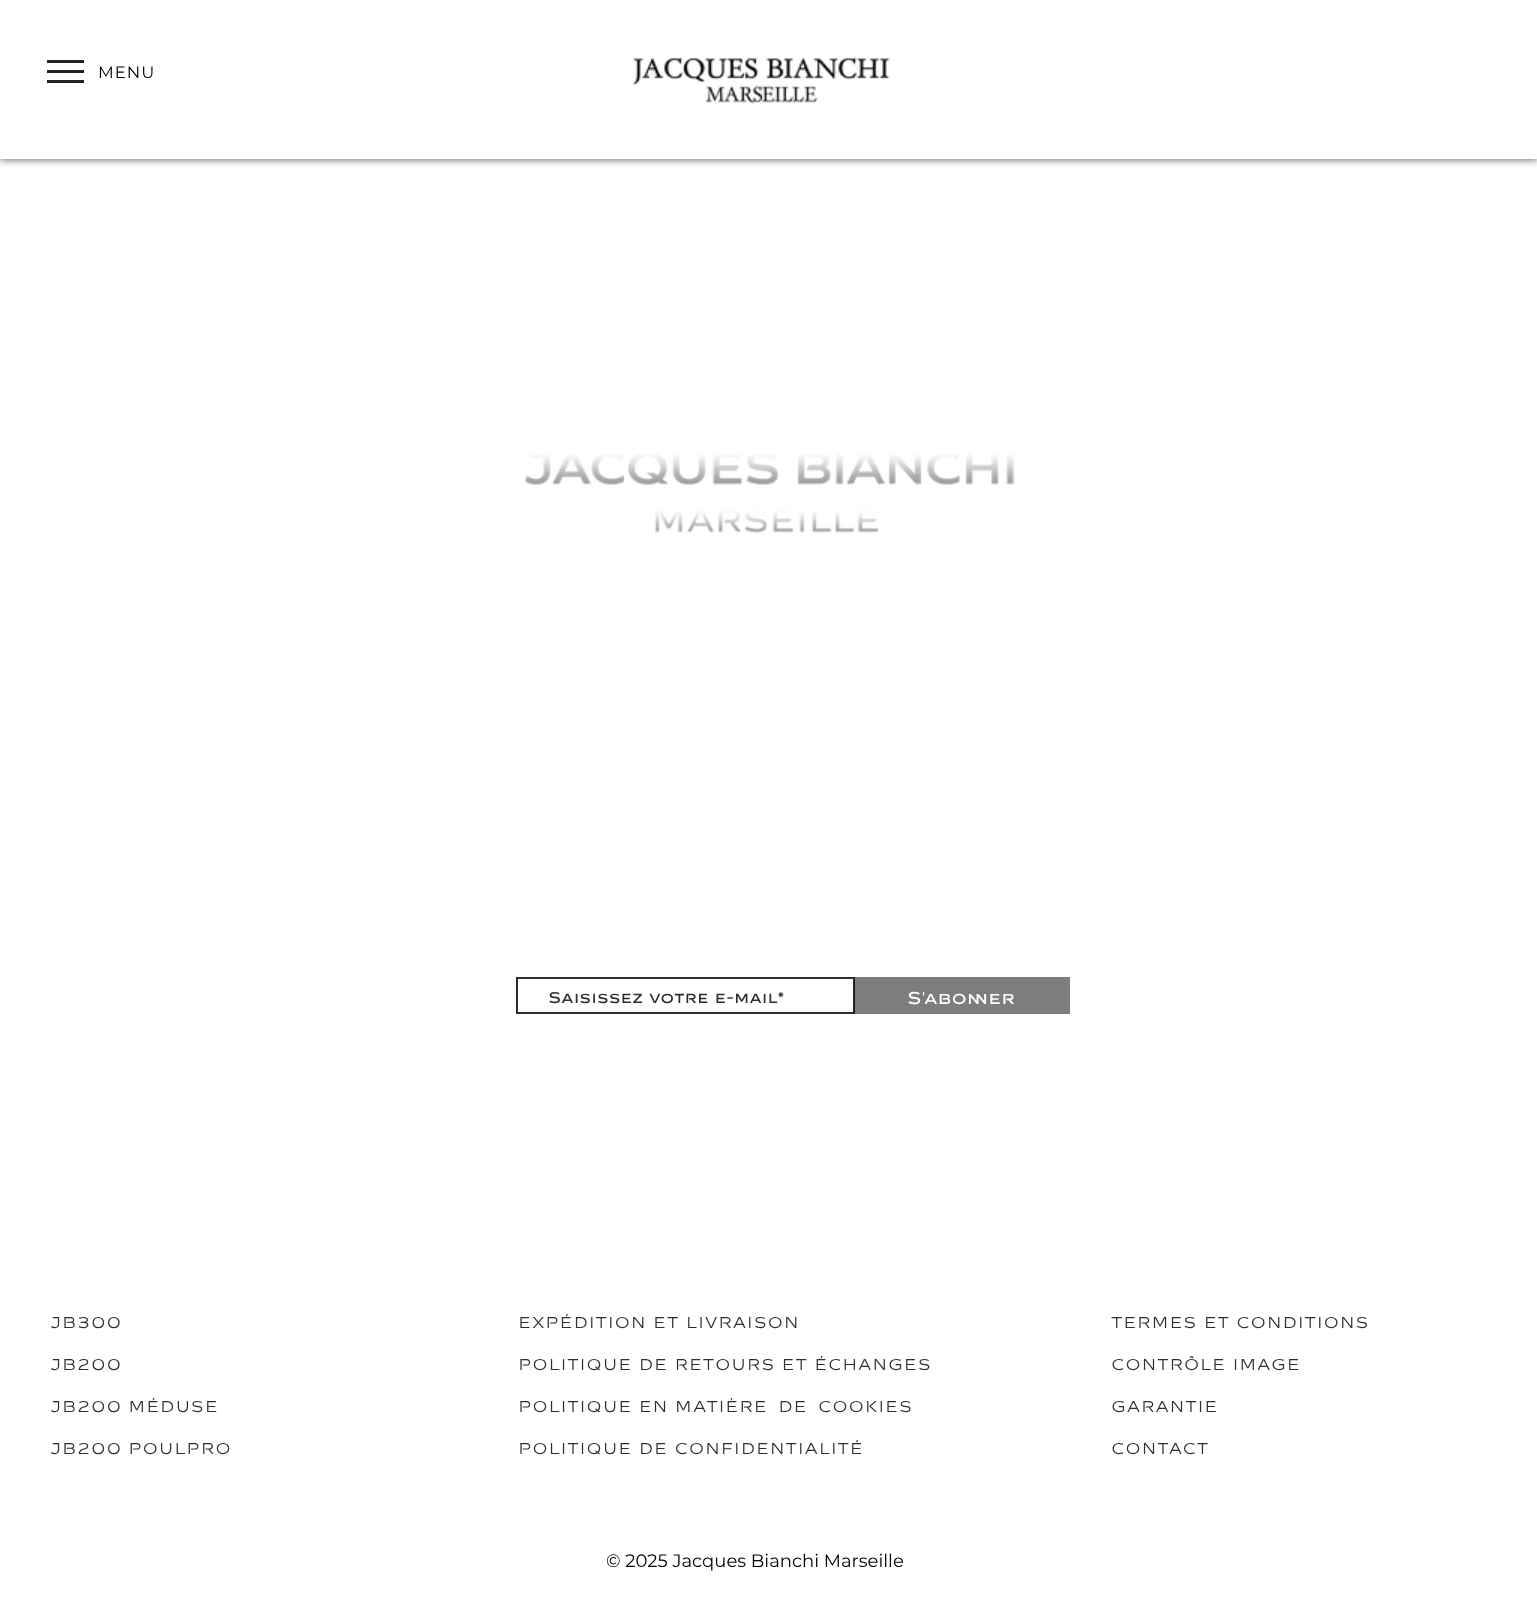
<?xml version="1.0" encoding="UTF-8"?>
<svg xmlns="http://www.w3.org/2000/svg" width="1537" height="1618">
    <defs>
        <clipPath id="clip1"><rect x="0" y="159" width="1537" height="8"/></clipPath>
        <filter id="blur1" x="-50%" y="-200%" width="200%" height="500%"><feGaussianBlur stdDeviation="4"/></filter>
    </defs>
    <rect width="100%" height="100%" fill="#FFFFFF"/>
    <g clip-path="url(#clip1)">
        <rect x="0" y="0" width="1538" height="159" fill="#000000" fill-opacity="0.7" filter="url(#blur1)"/>
    </g>
    <rect x="47" y="80" width="37" height="3" fill="#242323"/>
    <rect x="47" y="60" width="37" height="3" fill="#242323"/>
    <rect x="47" y="70" width="37" height="3" fill="#242323"/>
    <text x="98" y="78" font-family="Montserrat" font-size="16.5" letter-spacing="1" fill="#000000">MENU</text>
    <image x="632" y="57" width="258" height="47" href="img_01.png"/>
    <image x="524" y="453" width="491" height="80" href="img_02.png"/>
    <rect x="517" y="978" width="337" height="35" fill="none" stroke="#2F2E2E" stroke-width="2"/>
    <text x="548" y="1003" font-family="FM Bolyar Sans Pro" font-size="15" font-weight="500" fill="#2F2E2E">Saisissez votre e-mail*</text>
    <rect x="854" y="977" width="216" height="37" fill="#000000" fill-opacity="0.51"/>
    <text x="907" y="1004" font-family="FM Bolyar Sans Pro" font-size="16.5" font-weight="500" fill="#FFFFFF">S'abonner</text>
    <text x="50" y="1328" font-family="FM Bolyar Sans Pro" font-size="15" font-weight="100" letter-spacing="0.75" fill="#2F2E2E">JB300</text>
    <text x="50" y="1370" font-family="FM Bolyar Sans Pro" font-size="15" font-weight="100" letter-spacing="0.75" fill="#2F2E2E">JB200</text>
    <text x="50" y="1412" font-family="FM Bolyar Sans Pro" font-size="15" font-weight="100" letter-spacing="0.75" fill="#2F2E2E">JB200 MÉDUSE</text>
    <text x="50" y="1454" font-family="FM Bolyar Sans Pro" font-size="15" font-weight="100" letter-spacing="0.75" fill="#2F2E2E">JB200 POULPRO</text>
    <text x="518" y="1328" font-family="FM Bolyar Sans Pro" font-size="15" font-weight="100" letter-spacing="0.75" fill="#2F2E2E">EXPÉDITION ET LIVRAISON</text>
    <text x="518" y="1370" font-family="FM Bolyar Sans Pro" font-size="15" font-weight="100" letter-spacing="0.75" fill="#2F2E2E">POLITIQUE DE RETOURS ET ÉCHANGES</text>
    <text x="518" y="1412" font-family="FM Bolyar Sans Pro" font-size="15" font-weight="100" letter-spacing="0.75" fill="#2F2E2E">POLITIQUE EN M</text>
    <text x="693" y="1412" word-spacing="4" font-family="FM Bolyar Sans Pro" font-size="15" font-weight="100" letter-spacing="0.75" fill="#2F2E2E">ATIÈRE DE COOKIES</text>
    <text x="518" y="1454" font-family="FM Bolyar Sans Pro" font-size="15" font-weight="100" letter-spacing="0.75" fill="#2F2E2E">POLITIQUE DE CONFIDENTIALITÉ</text>
    <text x="1111" y="1328" font-family="FM Bolyar Sans Pro" font-size="15" font-weight="100" letter-spacing="0.75" fill="#2F2E2E">TERMES ET CONDITIONS</text>
    <text x="1111" y="1370" font-family="FM Bolyar Sans Pro" font-size="15" font-weight="100" letter-spacing="0.75" fill="#2F2E2E">CONTRÔLE IMAGE</text>
    <text x="1111" y="1412" font-family="FM Bolyar Sans Pro" font-size="15" font-weight="100" letter-spacing="0.75" fill="#2F2E2E">GARANTIE</text>
    <text x="1111" y="1454" font-family="FM Bolyar Sans Pro" font-size="15" font-weight="100" letter-spacing="0.75" fill="#2F2E2E">CONTACT</text>
    <text x="606" y="1567" font-family="Montserrat" font-size="18" fill="#000000">© 2025 Jacques Bianchi Marseille</text>
</svg>
